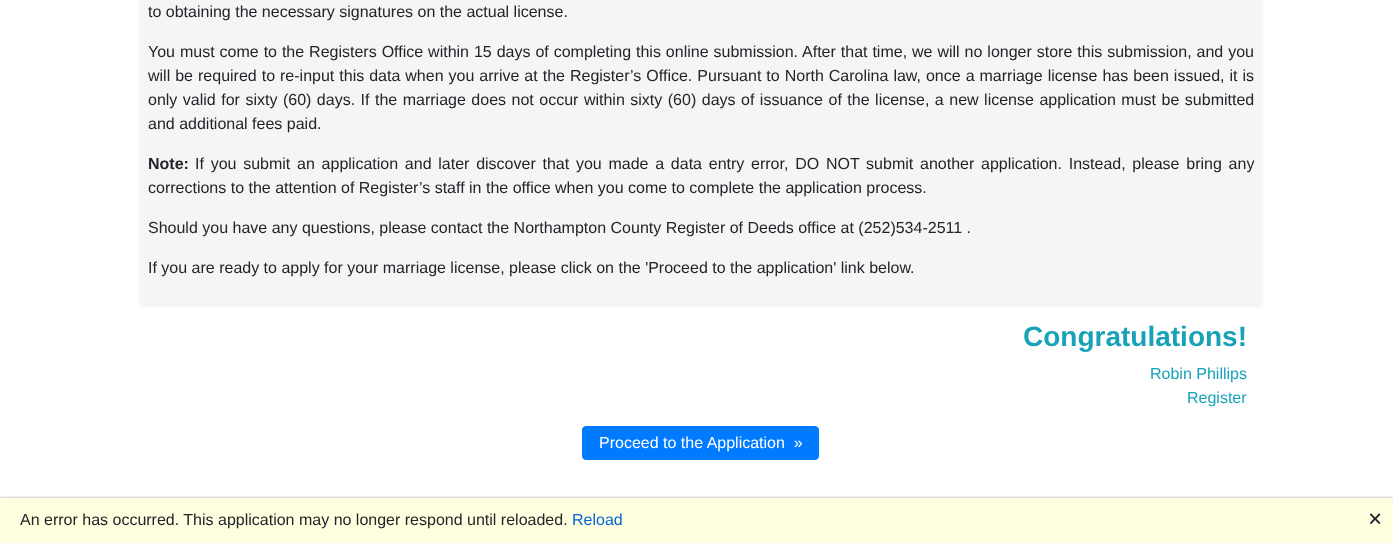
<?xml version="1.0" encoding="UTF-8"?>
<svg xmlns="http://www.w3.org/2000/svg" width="1393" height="543">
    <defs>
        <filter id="blur1" x="-50%" y="-200%" width="200%" height="500%"><feGaussianBlur stdDeviation="2"/></filter>
        <filter id="blur2" x="-50%" y="-200%" width="200%" height="500%"><feGaussianBlur stdDeviation="1"/></filter>
    </defs>
    <rect width="100%" height="100%" fill="#FFFFFF"/>
    <rect x="140" y="-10" width="1122" height="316" rx="4" fill="#000000" fill-opacity="0.07" filter="url(#blur1)"/>
    <rect x="140" y="-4" width="1122" height="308" rx="4" fill="#F5F5F5"/>
    <text x="148" y="17" font-family="Liberation Sans" font-size="16" fill="#212529">to obtaining the necessary signatures on the actual license.</text>
    <text font-family="Liberation Sans" font-size="16" fill="#212529">
        <tspan x="148" y="57" word-spacing="0.5">You must come to the Registers Office within 15 days of completing this online submission. After that time, we will no longer store this submission, and you</tspan>
        <tspan x="148" y="81" word-spacing="0.55">will be required to re-input this data when you arrive at the Register’s Office. Pursuant to North Carolina law, once a marriage license has been issued, it is</tspan>
        <tspan x="148" y="105" word-spacing="1.05">only valid for sixty (60) days. If the marriage does not occur within sixty (60) days of issuance of the license, a new license application must be submitted</tspan>
        <tspan x="148" y="129">and additional fees paid.</tspan>
    </text>
    <text x="148" y="169" font-family="Liberation Sans" font-size="16" font-weight="700" fill="#212529">Note:</text>
    <text x="195" y="169" word-spacing="2.3" font-family="Liberation Sans" font-size="16" fill="#212529">If you submit an application and later discover that you made a data entry error, DO NOT submit another application. Instead, please bring any</text>
    <text x="148" y="193" font-family="Liberation Sans" font-size="16" fill="#212529">corrections to the attention of Register’s staff in the office when you come to complete the application process.</text>
    <text x="148" y="233" font-family="Liberation Sans" font-size="16" fill="#212529">Should you have any questions, please contact the Northampton County Register of Deeds office at (252)534-2511 .</text>
    <text x="148" y="273" font-family="Liberation Sans" font-size="16" fill="#212529">If you are ready to apply for your marriage license, please click on the 'Proceed to the application' link below.</text>
    <text x="1023" y="346" font-family="Liberation Sans" font-size="28" font-weight="700" fill="#17A2B8">Congratulations!</text>
    <text x="1150" y="379" font-family="Liberation Sans" font-size="16" fill="#17A2B8">Robin Phillips</text>
    <text x="1187" y="403" font-family="Liberation Sans" font-size="16" fill="#17A2B8">Register</text>
    <rect x="582.5" y="426.5" width="236" height="33" rx="3.5" fill="#007BFF" stroke="#007BFF"/>
    <text x="599" y="448" font-family="Liberation Sans" font-size="16" fill="#FFFFFF" xml:space="preserve">Proceed to the Application  »</text>
    <rect x="0" y="497" width="1393" height="45" fill="#000000" fill-opacity="0.2" filter="url(#blur2)"/>
    <rect x="0" y="498" width="1393" height="45" fill="#FFFFE0"/>
    <text x="20" y="525" font-family="Liberation Sans" font-size="16" fill="#212529">An error has occurred. This application may no longer respond until reloaded.</text>
    <text x="572" y="525" font-family="Liberation Sans" font-size="16" fill="#0366D6">Reload</text>
    <text x="1369" y="523" font-family="'Noto Sans Symbols 2'" font-size="16" fill="#212529">🗙</text>
</svg>
